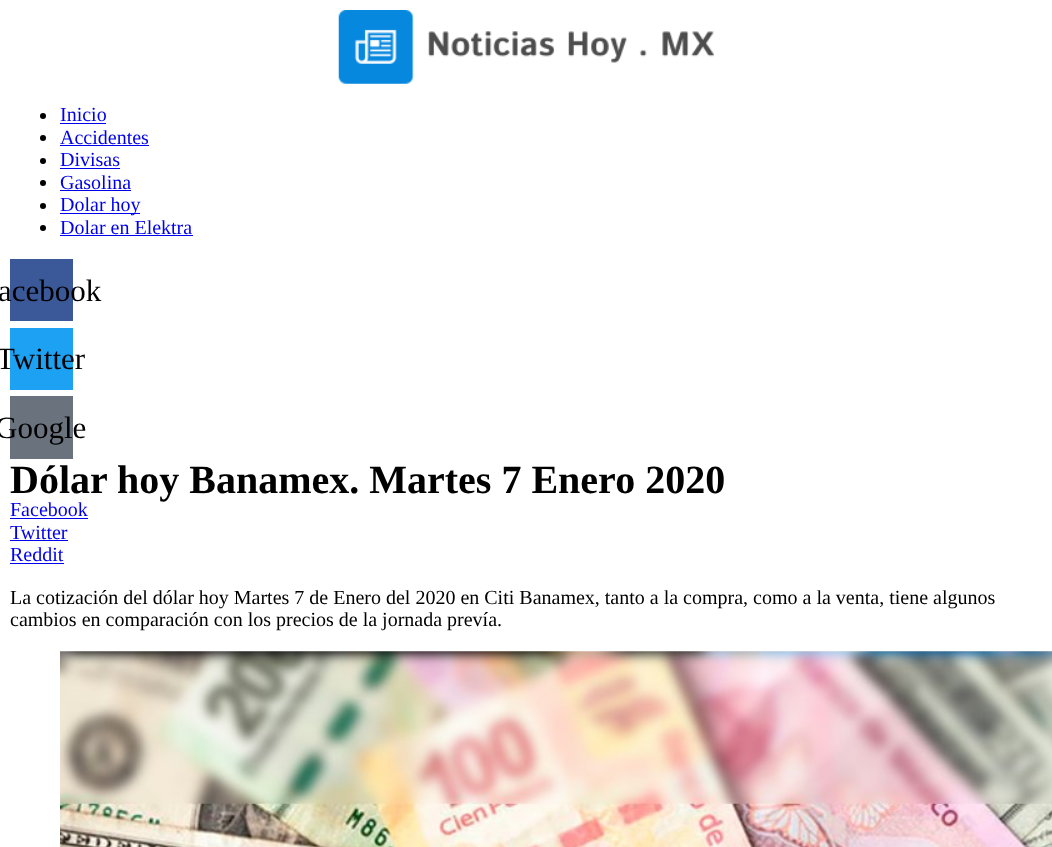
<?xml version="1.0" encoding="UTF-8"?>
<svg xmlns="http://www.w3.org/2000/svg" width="1052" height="847">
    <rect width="100%" height="100%" fill="#FFFFFF"/>
    <image x="338" y="10" width="376" height="74" href="img_01.png"/>
    <circle cx="43" cy="116" r="3" fill="#000000"/>
    <text x="60" y="121" font-family="Liberation Serif" font-size="20" fill="#0000EE">Inicio</text>
    <rect x="60" y="123" width="46" height="1" fill="#0000EE"/>
    <circle cx="43" cy="138" r="3" fill="#000000"/>
    <text x="60" y="144" font-family="Liberation Serif" font-size="20" fill="#0000EE">Accidentes</text>
    <rect x="60" y="145" width="89" height="1" fill="#0000EE"/>
    <circle cx="43" cy="161" r="3" fill="#000000"/>
    <text x="60" y="166" font-family="Liberation Serif" font-size="20" fill="#0000EE">Divisas</text>
    <rect x="60" y="168" width="60" height="1" fill="#0000EE"/>
    <circle cx="43" cy="183" r="3" fill="#000000"/>
    <text x="60" y="189" font-family="Liberation Serif" font-size="20" fill="#0000EE">Gasolina</text>
    <rect x="60" y="190" width="71" height="1" fill="#0000EE"/>
    <circle cx="43" cy="206" r="3" fill="#000000"/>
    <rect x="60" y="213" width="80" height="1" fill="#0000EE"/>
    <text x="60" y="211" font-family="Liberation Serif" font-size="20" fill="#0000EE">Dolar hoy</text>
    <circle cx="43" cy="228" r="3" fill="#000000"/>
    <text x="60" y="234" font-family="Liberation Serif" font-size="20" fill="#0000EE">Dolar en Elektra</text>
    <rect x="60" y="235" width="133" height="1" fill="#0000EE"/>
    <rect x="10" y="259" width="63" height="62" fill="#3B5998"/>
    <text x="-2" y="301" font-family="Liberation Serif" font-size="31" fill="#000000">acebook</text>
    <rect x="10" y="328" width="63" height="62" fill="#1DA1F2"/>
    <text x="-4" y="369" font-family="Liberation Serif" font-size="31" fill="#000000">Twitter</text>
    <rect x="10" y="396" width="63" height="63" fill="#69727D"/>
    <text x="-5" y="438" font-family="Liberation Serif" font-size="31" fill="#000000">Google</text>
    <text x="10" y="493" font-family="Liberation Serif" font-size="40" font-weight="700" fill="#000000">Dólar hoy Banamex. Martes 7 Enero 2020</text>
    <text x="10" y="516" font-family="Liberation Serif" font-size="20" fill="#0000EE">Facebook</text>
    <rect x="10" y="518" width="78" height="1" fill="#0000EE"/>
    <text x="10" y="539" font-family="Liberation Serif" font-size="20" fill="#0000EE">Twitter</text>
    <rect x="10" y="540" width="58" height="1" fill="#0000EE"/>
    <text x="10" y="561" font-family="Liberation Serif" font-size="20" fill="#0000EE">Reddit</text>
    <rect x="10" y="563" width="54" height="1" fill="#0000EE"/>
    <text font-family="Liberation Serif" font-size="20" fill="#000000">
        <tspan x="10" y="604">La cotización del dólar hoy Martes 7 de Enero del 2020 en Citi Banamex, tanto a la compra, como a la venta, tiene algunos</tspan>
        <tspan x="10" y="626">cambios en comparación con los precios de la jornada prevía.</tspan>
    </text>
    <image x="60" y="651" width="992" height="196" href="img_02.png"/>
</svg>
